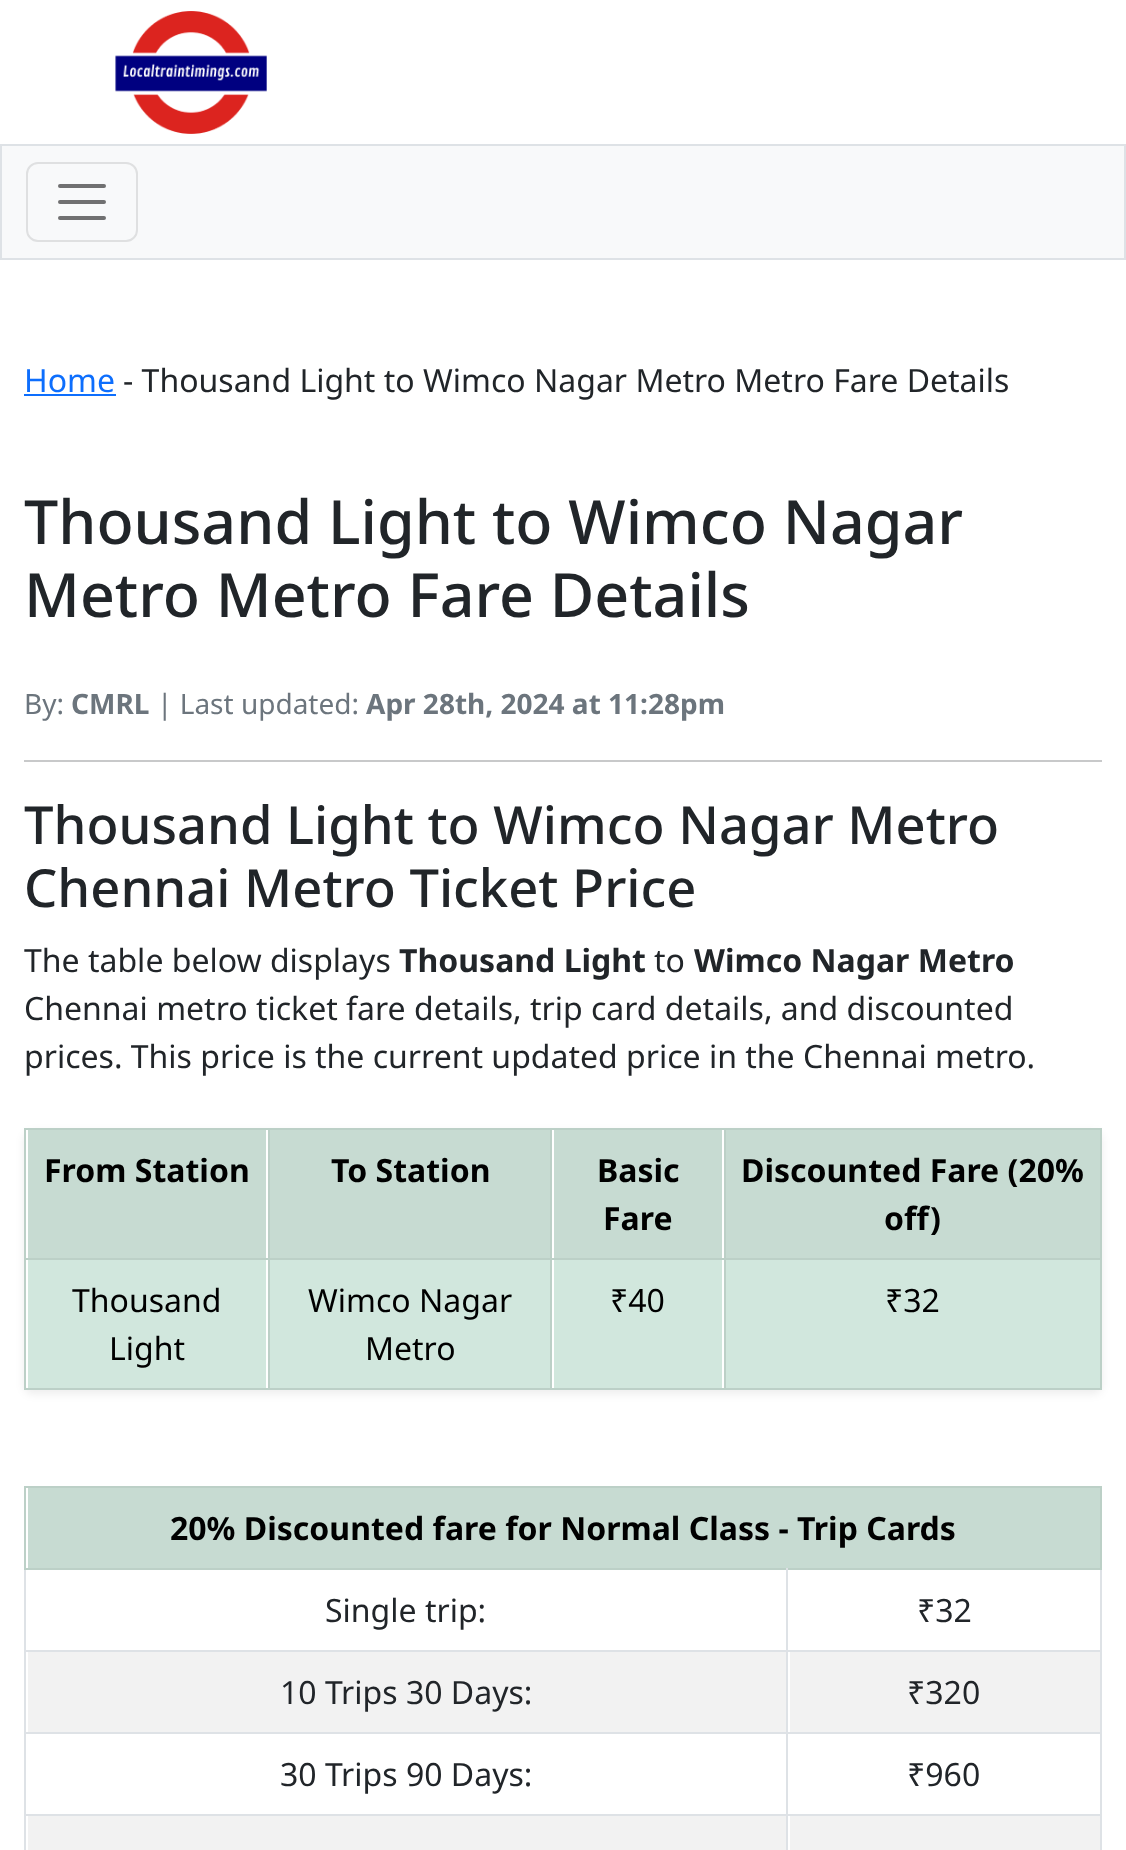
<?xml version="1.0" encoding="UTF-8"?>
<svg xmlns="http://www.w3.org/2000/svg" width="1126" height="1850">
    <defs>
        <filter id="blur1" x="-50%" y="-200%" width="200%" height="500%"><feGaussianBlur stdDeviation="4"/></filter>
    </defs>
    <rect width="100%" height="100%" fill="#FFFFFF"/>
    <image x="115" y="11" width="152" height="123" href="img_01.png"/>
    <rect x="1" y="145" width="1124" height="114" fill="#F8F9FA" stroke="#DEE2E6" stroke-width="2"/>
    <rect x="27" y="163" width="110" height="78" rx="11" fill="none" stroke="#DFE0E1" stroke-width="2"/>
    <path d="M 60 186 H 104 M 60 202 H 104 M 60 218 H 104" fill="none" stroke="#707071" stroke-width="4" stroke-linecap="round"/>
    <text x="24" y="392" font-family="Noto Sans" font-size="32" fill="#0D6EFD">Home</text>
    <rect x="24" y="394" width="92" height="2" fill="#0D6EFD"/>
    <text x="123" y="392" font-family="Noto Sans" font-size="32" fill="#212529">- Thousand Light to Wimco Nagar Metro Metro Fare Details</text>
    <text font-family="Noto Sans" font-size="60.9" font-weight="500" fill="#212529">
        <tspan x="24" y="544">Thousand Light to Wimco Nagar</tspan>
        <tspan x="24" y="617">Metro Metro Fare Details</tspan>
    </text>
    <text x="24" y="714" font-family="Noto Sans" font-size="28" fill="#6C757D">By:</text>
    <text x="71" y="714" font-family="Noto Sans" font-size="28" font-weight="700" fill="#6C757D">CMRL</text>
    <text x="157" y="714" font-family="Noto Sans" font-size="28" fill="#6C757D">| Last updated:</text>
    <text x="366" y="714" font-family="Noto Sans" font-size="28" font-weight="700" fill="#6C757D">Apr 28th, 2024 at 11:28pm</text>
    <rect x="24" y="760" width="1078" height="2" fill="#C8C9CA"/>
    <text font-family="Noto Sans" font-size="52.5" font-weight="500" fill="#212529">
        <tspan x="24" y="844">Thousand Light to Wimco Nagar Metro</tspan>
        <tspan x="24" y="907">Chennai Metro Ticket Price</tspan>
    </text>
    <text x="24" y="972" font-family="Noto Sans" font-size="32" fill="#212529">The table below displays</text>
    <text x="399" y="972" font-family="Noto Sans" font-size="32" font-weight="700" fill="#212529">Thousand Light</text>
    <text x="654" y="972" font-family="Noto Sans" font-size="32" fill="#212529">to</text>
    <text x="694" y="972" font-family="Noto Sans" font-size="32" font-weight="700" fill="#212529">Wimco Nagar Metro</text>
    <text font-family="Noto Sans" font-size="32" fill="#212529">
        <tspan x="24" y="1020">Chennai metro ticket fare details, trip card details, and discounted</tspan>
        <tspan x="24" y="1068">prices. This price is the current updated price in the Chennai metro.</tspan>
    </text>
    <rect x="24" y="1132" width="1078" height="262" rx="8" fill="#000000" fill-opacity="0.07" filter="url(#blur1)"/>
    <rect x="24" y="1128" width="1078" height="262" rx="8" fill="#FFFFFF"/>
    <rect x="24" y="1128" width="1078" height="2" fill="#BCD0C7"/>
    <rect x="28" y="1130" width="238" height="128" fill="#C7DBD2"/>
    <text x="44" y="1182" font-family="Noto Sans" font-size="32" font-weight="700" fill="#000000">From Station</text>
    <rect x="270" y="1130" width="280" height="128" fill="#C7DBD2"/>
    <text x="331" y="1182" font-family="Noto Sans" font-size="32" font-weight="700" fill="#000000">To Station</text>
    <rect x="554" y="1130" width="168" height="128" fill="#C7DBD2"/>
    <text x="597" y="1182" font-family="Noto Sans" font-size="32" font-weight="700" fill="#000000">Basic</text>
    <text x="603" y="1230" font-family="Noto Sans" font-size="32" font-weight="700" fill="#000000">Fare</text>
    <rect x="726" y="1130" width="374" height="128" fill="#C7DBD2"/>
    <text x="741" y="1182" font-family="Noto Sans" font-size="32" font-weight="700" fill="#000000">Discounted Fare (20%</text>
    <text x="884" y="1230" font-family="Noto Sans" font-size="32" font-weight="700" fill="#000000">off)</text>
    <rect x="24" y="1258" width="1078" height="2" fill="#BCD0C7"/>
    <rect x="24" y="1388" width="1078" height="2" fill="#BCD0C7"/>
    <rect x="28" y="1260" width="238" height="128" fill="#D1E7DD"/>
    <rect x="24" y="1128" width="2" height="262" fill="#BCD0C7"/>
    <text x="72" y="1312" font-family="Noto Sans" font-size="32" fill="#000000">Thousand</text>
    <text x="109" y="1360" font-family="Noto Sans" font-size="32" fill="#000000">Light</text>
    <rect x="270" y="1260" width="280" height="128" fill="#D1E7DD"/>
    <rect x="268" y="1128" width="2" height="262" fill="#BCD0C7"/>
    <text x="308" y="1312" font-family="Noto Sans" font-size="32" fill="#000000">Wimco Nagar</text>
    <text x="365" y="1360" font-family="Noto Sans" font-size="32" fill="#000000">Metro</text>
    <rect x="554" y="1260" width="168" height="128" fill="#D1E7DD"/>
    <rect x="550" y="1128" width="2" height="262" fill="#BCD0C7"/>
    <text x="610" y="1312" font-family="Noto Sans" font-size="32" fill="#000000">₹40</text>
    <rect x="726" y="1260" width="374" height="128" fill="#D1E7DD"/>
    <rect x="1100" y="1128" width="2" height="262" fill="#BCD0C7"/>
    <rect x="724" y="1128" width="2" height="262" fill="#BCD0C7"/>
    <text x="885" y="1312" font-family="Noto Sans" font-size="32" fill="#000000">₹32</text>
    <rect x="24" y="1486" width="1078" height="2" fill="#BCD0C7"/>
    <rect x="24" y="1568" width="1078" height="2" fill="#BCD0C7"/>
    <rect x="28" y="1488" width="1072" height="80" fill="#C7DBD2"/>
    <rect x="24" y="1814" width="1078" height="2" fill="#DEE2E6"/>
    <rect x="24" y="1650" width="1078" height="2" fill="#DEE2E6"/>
    <rect x="24" y="1732" width="1078" height="2" fill="#DEE2E6"/>
    <rect x="1100" y="1568" width="2" height="282" fill="#DEE2E6"/>
    <rect x="1100" y="1486" width="2" height="84" fill="#BCD0C7"/>
    <rect x="24" y="1568" width="2" height="282" fill="#DEE2E6"/>
    <rect x="24" y="1486" width="2" height="84" fill="#BCD0C7"/>
    <text x="170" y="1540" font-family="Noto Sans" font-size="32" font-weight="700" fill="#000000">20% Discounted fare for Normal Class - Trip Cards</text>
    <rect x="28" y="1816" width="758" height="34" fill="#F2F2F2"/>
    <rect x="790" y="1816" width="310" height="34" fill="#F2F2F2"/>
    <rect x="786" y="1568" width="2" height="282" fill="#DEE2E6"/>
    <text x="325" y="1622" font-family="Noto Sans" font-size="32" fill="#212529">Single trip:</text>
    <text x="917" y="1622" font-family="Noto Sans" font-size="32" fill="#212529">₹32</text>
    <rect x="28" y="1652" width="758" height="80" fill="#F2F2F2"/>
    <text x="280" y="1704" font-family="Noto Sans" font-size="32" fill="#212529">10 Trips 30 Days:</text>
    <rect x="790" y="1652" width="310" height="80" fill="#F2F2F2"/>
    <text x="907" y="1704" font-family="Noto Sans" font-size="32" fill="#212529">₹320</text>
    <text x="280" y="1786" font-family="Noto Sans" font-size="32" fill="#212529">30 Trips 90 Days:</text>
    <text x="907" y="1786" font-family="Noto Sans" font-size="32" fill="#212529">₹960</text>
</svg>
